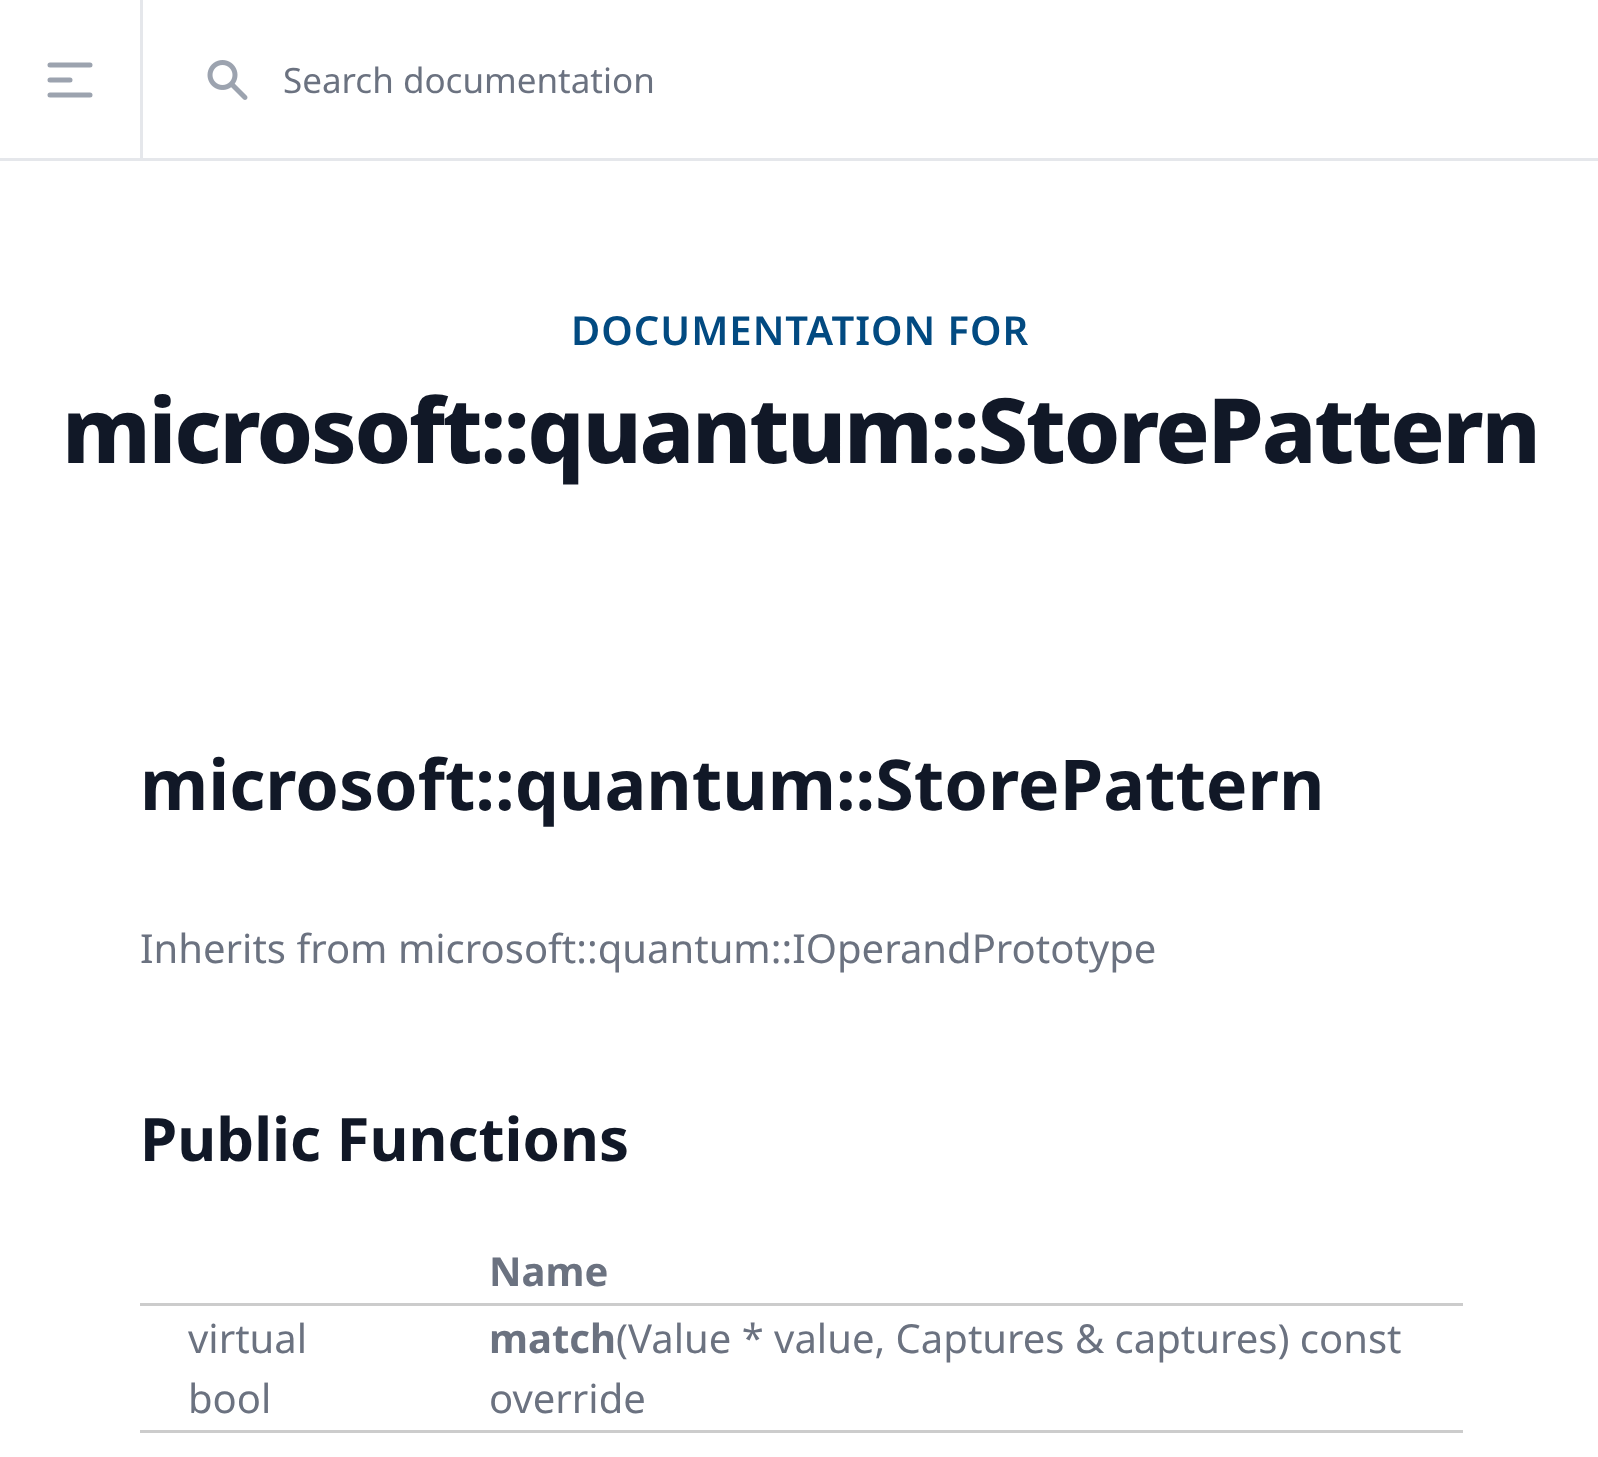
<?xml version="1.0" encoding="UTF-8"?>
<svg xmlns="http://www.w3.org/2000/svg" width="1598" height="1457">
    <rect width="100%" height="100%" fill="#FFFFFF"/>
    <rect x="0" y="158" width="1598" height="3" fill="#E5E7EB"/>
    <rect x="140" y="0" width="3" height="158" fill="#E5E7EB"/>
    <path d="M 50 65 H 90 M 50 80 H 70 M 50 95 H 90" fill="none" stroke="#9CA3AF" stroke-width="5" stroke-linecap="round" stroke-linejoin="round"/>
    <image x="207" y="60" width="41" height="40" href="img_01.png"/>
    <text x="283" y="93" font-family="Noto Sans" font-size="35" fill="#6B7280">Search documentation</text>
    <text x="571" y="345" font-family="Noto Sans" font-size="40" font-weight="600" letter-spacing="1" fill="#024A81">DOCUMENTATION FOR</text>
    <text x="62" y="463" font-family="Noto Sans" font-size="90" font-weight="800" letter-spacing="-2.25" fill="#111827">microsoft::quantum::StorePattern</text>
    <text x="140" y="810" font-family="Noto Sans" font-size="70" font-weight="700" fill="#111827">microsoft::quantum::StorePattern</text>
    <text x="140" y="963" font-family="Noto Sans" font-size="40" fill="#6B7280">Inherits from microsoft::quantum::IOperandPrototype</text>
    <text x="140" y="1161" font-family="Noto Sans" font-size="60" font-weight="700" fill="#111827">Public Functions</text>
    <rect x="140" y="1303" width="1323" height="3" fill="#CCCCCC"/>
    <text x="489" y="1286" font-family="Noto Sans" font-size="40" font-weight="700" fill="#6B7280">Name</text>
    <rect x="140" y="1430" width="1323" height="3" fill="#CCCCCC"/>
    <text font-family="Noto Sans" font-size="40" fill="#6B7280">
        <tspan x="188" y="1353">virtual</tspan>
        <tspan x="188" y="1413">bool</tspan>
    </text>
    <text x="489" y="1353" font-family="Noto Sans" font-size="40" font-weight="700" fill="#6B7280">match</text>
    <text x="616" y="1353" font-family="Noto Sans" font-size="40" fill="#6B7280">(Value * value, Captures &amp; captures) const</text>
    <text x="489" y="1413" font-family="Noto Sans" font-size="40" fill="#6B7280">override</text>
</svg>
